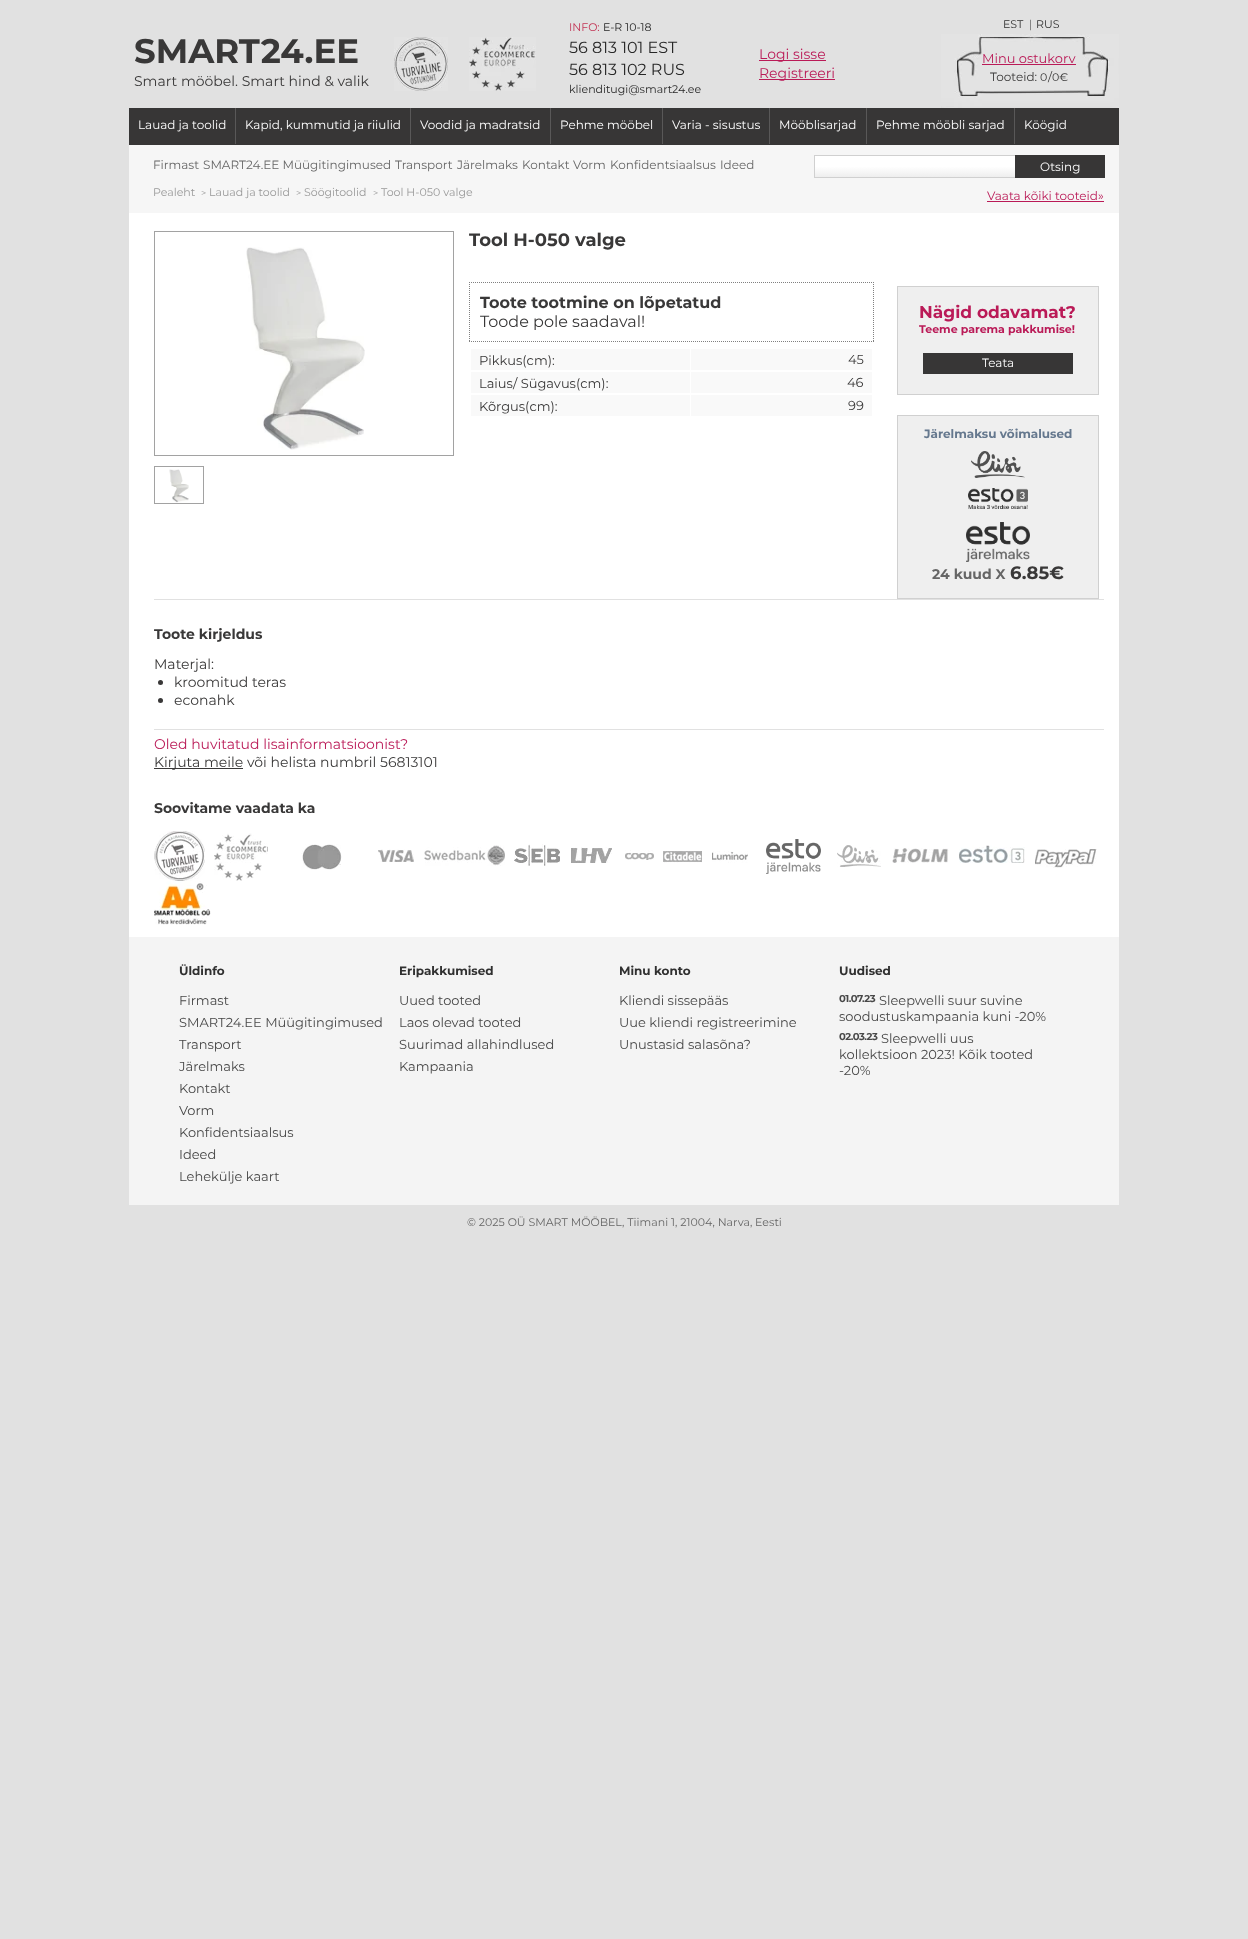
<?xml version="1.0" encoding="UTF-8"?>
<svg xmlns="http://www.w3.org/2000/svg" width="1248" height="1939">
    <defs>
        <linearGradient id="g1" gradientUnits="userSpaceOnUse" x1="815" y1="177" x2="815" y2="156"><stop offset="0" stop-color="#EEEEEE"/><stop offset="0.5" stop-color="#FFFFFF"/></linearGradient>
    </defs>
    <rect width="100%" height="100%" fill="#E1E1E1"/>
    <text x="134" y="63" font-family="Montserrat" font-size="34" font-weight="700" fill="#393838">SMART24.EE</text>
    <text x="134" y="86" font-family="Montserrat" font-size="14" fill="#393838">Smart mööbel. Smart hind &amp; valik</text>
    <image x="394" y="37" width="54" height="54" href="img_01.png"/>
    <image x="469" y="37" width="67" height="54" href="img_02.png"/>
    <text x="569" y="31" font-family="Montserrat" font-size="11" fill="#C33656">INFO:</text>
    <text x="603" y="31" font-family="Montserrat" font-size="11" fill="#272727">E-R 10-18</text>
    <text font-family="Montserrat" font-size="16" fill="#272727">
        <tspan x="569" y="53">56 813 101 EST</tspan>
        <tspan x="569" y="75">56 813 102 RUS</tspan>
    </text>
    <text x="569" y="93" font-family="Montserrat" font-size="11" fill="#272727">klienditugi@smart24.ee</text>
    <rect x="759" y="60" width="67" height="1" fill="#BA1A57"/>
    <text x="759" y="59" font-family="Montserrat" font-size="14" fill="#BA1A57">Logi sisse</text>
    <rect x="759" y="79" width="76" height="1" fill="#BA1A57"/>
    <text x="759" y="78" font-family="Montserrat" font-size="14" fill="#BA1A57">Registreeri</text>
    <image x="941" y="34" width="178" height="74" href="img_03.png"/>
    <text x="1003" y="28" font-family="Montserrat" font-size="11" fill="#303030">EST</text>
    <text x="1029" y="28" font-family="Montserrat" font-size="11" fill="#666666">|</text>
    <text x="1036" y="28" font-family="Montserrat" font-size="11" fill="#303030">RUS</text>
    <text x="982" y="63" font-family="Montserrat" font-size="13" fill="#BA1A57">Minu ostukorv</text>
    <rect x="982" y="64" width="94" height="1" fill="#BA1A57"/>
    <text x="990" y="81" font-family="Montserrat" font-size="12" fill="#393838">Tooteid:</text>
    <text x="1040" y="81" font-family="Montserrat" font-size="11" fill="#393838">0</text>
    <text x="1048" y="81" font-family="Montserrat" font-size="12" fill="#393838">/</text>
    <text x="1052" y="81" font-family="Montserrat" font-size="11" fill="#393838">0€</text>
    <rect x="129" y="108" width="990" height="37" fill="#373636"/>
    <rect x="235" y="108" width="1" height="36" fill="#595858"/>
    <text x="138" y="129" font-family="Montserrat" font-size="12" fill="#FFFFFF">Lauad ja toolid</text>
    <rect x="410" y="108" width="1" height="36" fill="#595858"/>
    <text x="245" y="129" font-family="Montserrat" font-size="12" fill="#FFFFFF">Kapid, kummutid ja riiulid</text>
    <rect x="550" y="108" width="1" height="36" fill="#595858"/>
    <text x="420" y="129" font-family="Montserrat" font-size="12" fill="#FFFFFF">Voodid ja madratsid</text>
    <rect x="662" y="108" width="1" height="36" fill="#595858"/>
    <text x="560" y="129" font-family="Montserrat" font-size="12" fill="#FFFFFF">Pehme mööbel</text>
    <rect x="769" y="108" width="1" height="36" fill="#595858"/>
    <text x="672" y="129" font-family="Montserrat" font-size="12" fill="#FFFFFF">Varia - sisustus</text>
    <rect x="866" y="108" width="1" height="36" fill="#595858"/>
    <text x="779" y="129" font-family="Montserrat" font-size="12" fill="#FFFFFF">Mööblisarjad</text>
    <rect x="1014" y="108" width="1" height="36" fill="#595858"/>
    <text x="876" y="129" font-family="Montserrat" font-size="12" fill="#FFFFFF">Pehme mööbli sarjad</text>
    <text x="1024" y="129" font-family="Montserrat" font-size="12" fill="#FFFFFF">Köögid</text>
    <rect x="129" y="145" width="990" height="68" fill="#F6F6F6"/>
    <text x="153" y="169" font-family="Montserrat" font-size="12" fill="#666666">Firmast</text>
    <text x="203" y="169" font-family="Montserrat" font-size="12" fill="#666666">SMART24.EE Müügitingimused</text>
    <text x="395" y="169" font-family="Montserrat" font-size="12" fill="#666666">Transport</text>
    <text x="457" y="169" font-family="Montserrat" font-size="12" fill="#666666">Järelmaks</text>
    <text x="522" y="169" font-family="Montserrat" font-size="12" fill="#666666">Kontakt</text>
    <text x="573" y="169" font-family="Montserrat" font-size="12" fill="#666666">Vorm</text>
    <text x="610" y="169" font-family="Montserrat" font-size="12" fill="#666666">Konfidentsiaalsus</text>
    <text x="720" y="169" font-family="Montserrat" font-size="12" fill="#666666">Ideed</text>
    <rect x="815" y="156" width="200" height="21" fill="url(#g1)"/>
    <rect x="814" y="155" width="201" height="1" fill="#D0D0D0"/>
    <rect x="814" y="177" width="201" height="1" fill="#D0D0D0"/>
    <rect x="814" y="155" width="1" height="23" fill="#D0D0D0"/>
    <rect x="1015" y="155" width="90" height="23" fill="#373636"/>
    <text x="1040" y="171" font-family="Montserrat" font-size="12" fill="#FFFFFF">Otsing</text>
    <text x="987" y="200" font-family="Montserrat" font-size="12" fill="#BA1A57">Vaata kõiki tooteid»</text>
    <rect x="987" y="201" width="117" height="1" fill="#BA1A57"/>
    <text x="153" y="196" font-family="Montserrat" font-size="11" fill="#999999">Pealeht</text>
    <text x="201" y="196" font-family="Montserrat" font-size="9" fill="#999999">&gt;</text>
    <text x="209" y="196" font-family="Montserrat" font-size="11" fill="#999999">Lauad ja toolid</text>
    <text x="296" y="196" font-family="Montserrat" font-size="9" fill="#999999">&gt;</text>
    <text x="304" y="196" font-family="Montserrat" font-size="11" fill="#999999">Söögitoolid</text>
    <text x="373" y="196" font-family="Montserrat" font-size="9" fill="#999999">&gt;</text>
    <text x="381" y="196" font-family="Montserrat" font-size="11" fill="#999999">Tool H-050 valge</text>
    <rect x="129" y="213" width="990" height="724" fill="#FFFFFF"/>
    <image x="246" y="247" width="119" height="203" href="img_04.png"/>
    <rect x="154.5" y="231.5" width="299" height="224" fill="none" stroke="#A2A2A2"/>
    <image x="169" y="469" width="20" height="34" href="img_05.png"/>
    <rect x="154.5" y="466.5" width="49" height="37" fill="none" stroke="#A2A2A2"/>
    <text x="469" y="246" font-family="Montserrat" font-size="18" font-weight="700" fill="#393838">Tool H-050 valge</text>
    <path d="M 469 282.5 H 874" fill="none" stroke="#808080" stroke-dasharray="1 1"/>
    <path d="M 873.5 282 V 342" fill="none" stroke="#808080" stroke-dasharray="1 1"/>
    <path d="M 469 341.5 H 874" fill="none" stroke="#808080" stroke-dasharray="1 1"/>
    <path d="M 469.5 282 V 342" fill="none" stroke="#808080" stroke-dasharray="1 1"/>
    <text x="480" y="308" font-family="Montserrat" font-size="16" font-weight="700" fill="#393838">Toote tootmine on lõpetatud</text>
    <text x="480" y="327" font-family="Montserrat" font-size="16" fill="#393838">Toode pole saadaval!</text>
    <rect x="471" y="349" width="219" height="21" fill="#F9F9F9"/>
    <text x="479" y="365" font-family="Montserrat" font-size="13" fill="#393838">Pikkus(cm):</text>
    <rect x="691" y="349" width="181" height="21" fill="#F9F9F9"/>
    <text x="848" y="364" font-family="Montserrat" font-size="13" fill="#393838">45</text>
    <rect x="471" y="372" width="219" height="21" fill="#F9F9F9"/>
    <text x="479" y="388" font-family="Montserrat" font-size="13" fill="#393838">Laius/ Sügavus(cm):</text>
    <rect x="691" y="372" width="181" height="21" fill="#F9F9F9"/>
    <text x="847" y="387" font-family="Montserrat" font-size="13" fill="#393838">46</text>
    <rect x="471" y="395" width="219" height="21" fill="#F9F9F9"/>
    <text x="479" y="411" font-family="Montserrat" font-size="13" fill="#393838">Kõrgus(cm):</text>
    <rect x="691" y="395" width="181" height="21" fill="#F9F9F9"/>
    <text x="848" y="410" font-family="Montserrat" font-size="13" fill="#393838">99</text>
    <rect x="897.5" y="286.5" width="201" height="108" fill="#EFEFEF" stroke="#D0D0D0"/>
    <text x="919" y="318" font-family="Montserrat" font-size="17" font-weight="700" fill="#BA1A57">Nägid odavamat?</text>
    <text x="919" y="333" font-family="Montserrat" font-size="11" font-weight="700" fill="#BA1A57">Teeme parema pakkumise!</text>
    <rect x="923" y="353" width="150" height="21" fill="#373636"/>
    <text x="982" y="367" font-family="Montserrat" font-size="12" fill="#FFFFFF">Teata</text>
    <rect x="897.5" y="415.5" width="201" height="183" fill="#EFEFEF" stroke="#D0D0D0"/>
    <text x="924" y="438" font-family="Montserrat" font-size="12" font-weight="700" fill="#65788E">Järelmaksu võimalused</text>
    <image x="971" y="451" width="54" height="27" href="img_06.png"/>
    <image x="968" y="488" width="60" height="21" href="img_07.png"/>
    <image x="966" y="522" width="64" height="40" href="img_08.png"/>
    <text x="932" y="579" font-family="Montserrat" font-size="14" font-weight="700" fill="#666666">24 kuud X</text>
    <text x="1010" y="579" font-family="Montserrat" font-size="18" font-weight="700" fill="#393838">6.85€</text>
    <rect x="154" y="599" width="950" height="1" fill="#E1E1E1"/>
    <text x="154" y="639" font-family="Montserrat" font-size="14" font-weight="700" fill="#393838">Toote kirjeldus</text>
    <text x="154" y="669" font-family="Montserrat" font-size="14" fill="#393838">Materjal:</text>
    <circle cx="160.5" cy="682.5" r="2.5" fill="#393838"/>
    <text x="174" y="687" font-family="Montserrat" font-size="14" fill="#393838">kroomitud teras</text>
    <circle cx="160.5" cy="700.5" r="2.5" fill="#393838"/>
    <text x="174" y="705" font-family="Montserrat" font-size="14" fill="#393838">econahk</text>
    <rect x="154" y="729" width="950" height="1" fill="#E1E1E1"/>
    <text x="154" y="749" font-family="Montserrat" font-size="14" fill="#BA1A57">Oled huvitatud lisainformatsioonist?</text>
    <rect x="154" y="768" width="89" height="1" fill="#393838"/>
    <text x="154" y="767" font-family="Montserrat" font-size="14" fill="#393838">Kirjuta meile või helista numbril 56813101</text>
    <text x="154" y="813" font-family="Montserrat" font-size="14" font-weight="700" fill="#393838">Soovitame vaadata ka</text>
    <image x="154" y="831" width="51" height="50" href="img_09.png"/>
    <image x="214" y="833" width="54" height="48" href="img_10.png"/>
    <image x="301" y="844" width="41" height="26" href="img_11.png"/>
    <image x="378" y="849" width="36" height="13" href="img_12.png"/>
    <image x="424" y="845" width="81" height="21" href="img_13.png"/>
    <image x="514" y="844" width="46" height="22" href="img_14.png"/>
    <image x="571" y="847" width="41" height="16" href="img_15.png"/>
    <image x="625" y="850" width="29" height="10" href="img_16.png"/>
    <image x="663" y="851" width="39" height="12" href="img_17.png"/>
    <image x="712" y="851" width="36" height="12" href="img_18.png"/>
    <image x="766" y="839" width="55" height="35" href="img_19.png"/>
    <image x="837" y="845" width="44" height="22" href="img_20.png"/>
    <image x="892" y="848" width="57" height="15" href="img_21.png"/>
    <image x="959" y="845" width="66" height="18" href="img_22.png"/>
    <image x="1035" y="849" width="62" height="19" href="img_23.png"/>
    <image x="154" y="881" width="57" height="44" href="img_24.png"/>
    <rect x="129" y="937" width="990" height="268" fill="#F4F4F4"/>
    <text x="179" y="975" font-family="Montserrat" font-size="12" font-weight="700" fill="#303030">Üldinfo</text>
    <text font-family="Montserrat" font-size="13" fill="#484848">
        <tspan x="179" y="1005">Firmast</tspan>
        <tspan x="179" y="1027">SMART24.EE Müügitingimused</tspan>
        <tspan x="179" y="1049">Transport</tspan>
        <tspan x="179" y="1071">Järelmaks</tspan>
        <tspan x="179" y="1093">Kontakt</tspan>
        <tspan x="179" y="1115">Vorm</tspan>
        <tspan x="179" y="1137">Konfidentsiaalsus</tspan>
        <tspan x="179" y="1159">Ideed</tspan>
        <tspan x="179" y="1181">Lehekülje kaart</tspan>
    </text>
    <text x="399" y="975" font-family="Montserrat" font-size="12" font-weight="700" fill="#303030">Eripakkumised</text>
    <text font-family="Montserrat" font-size="13" fill="#484848">
        <tspan x="399" y="1005">Uued tooted</tspan>
        <tspan x="399" y="1027">Laos olevad tooted</tspan>
        <tspan x="399" y="1049">Suurimad allahindlused</tspan>
        <tspan x="399" y="1071">Kampaania</tspan>
    </text>
    <text x="619" y="975" font-family="Montserrat" font-size="12" font-weight="700" fill="#303030">Minu konto</text>
    <text font-family="Montserrat" font-size="13" fill="#484848">
        <tspan x="619" y="1005">Kliendi sissepääs</tspan>
        <tspan x="619" y="1027">Uue kliendi registreerimine</tspan>
        <tspan x="619" y="1049">Unustasid salasõna?</tspan>
    </text>
    <text x="839" y="975" font-family="Montserrat" font-size="12" font-weight="700" fill="#303030">Uudised</text>
    <text x="839" y="1002" font-family="Montserrat" font-size="10" font-weight="700" letter-spacing="-0.5" fill="#484848">01.07.23</text>
    <text x="879" y="1005" font-family="Montserrat" font-size="13" fill="#484848">Sleepwelli suur suvine</text>
    <text x="839" y="1021" font-family="Montserrat" font-size="13" fill="#484848">soodustuskampaania kuni -20%</text>
    <text x="839" y="1040" font-family="Montserrat" font-size="10" font-weight="700" letter-spacing="-0.5" fill="#484848">02.03.23</text>
    <text x="881" y="1043" font-family="Montserrat" font-size="13" fill="#484848">Sleepwelli uus</text>
    <text font-family="Montserrat" font-size="13" fill="#484848">
        <tspan x="839" y="1059">kollektsioon 2023! Kõik tooted</tspan>
        <tspan x="839" y="1075">-20%</tspan>
    </text>
    <text x="467" y="1226" font-family="Montserrat" font-size="11" fill="#666666">© 2025 OÜ SMART MÖÖBEL, Tiimani 1, 21004, Narva, Eesti</text>
</svg>
